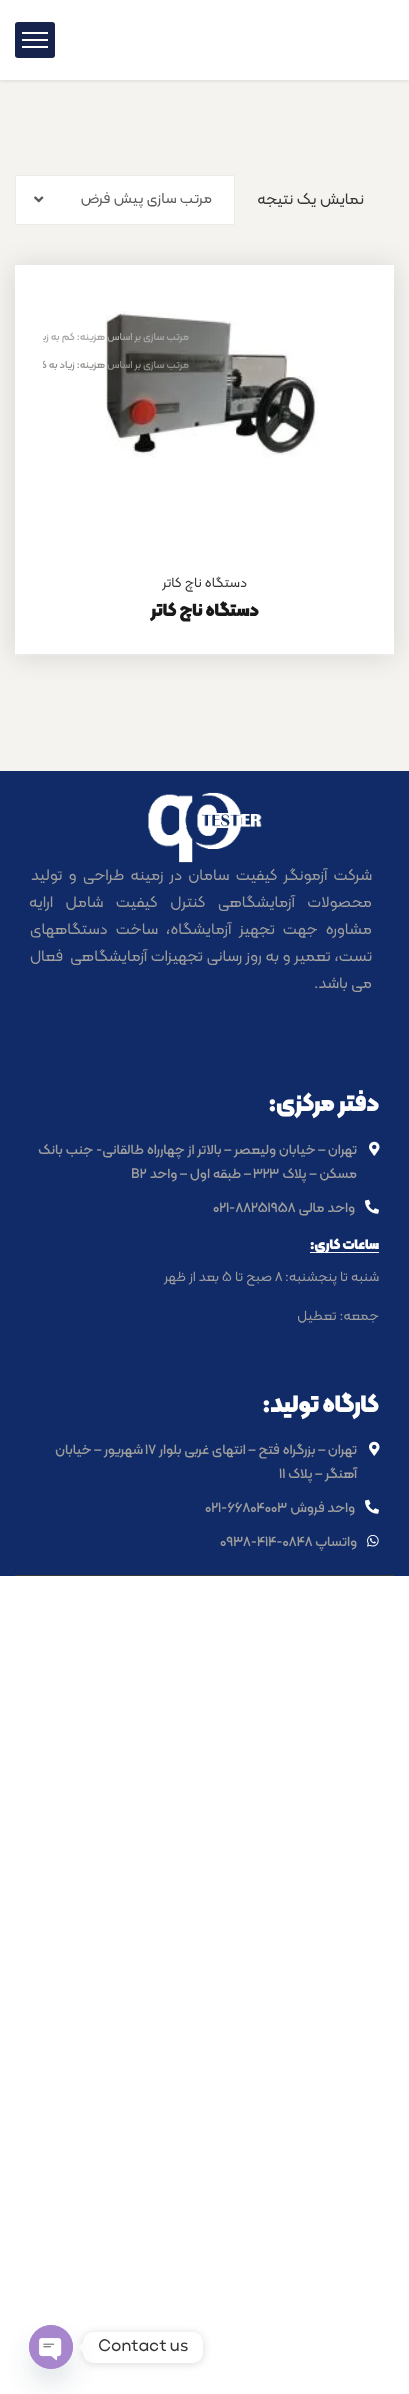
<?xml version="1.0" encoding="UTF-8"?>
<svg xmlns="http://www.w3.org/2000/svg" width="409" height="2394">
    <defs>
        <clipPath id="clip1"><rect x="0" y="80" width="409" height="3"/></clipPath>
        <filter id="blur1" x="-50%" y="-200%" width="200%" height="500%"><feGaussianBlur stdDeviation="2.5"/></filter>
        <filter id="blur2" x="-50%" y="-200%" width="200%" height="500%"><feGaussianBlur stdDeviation="13.5"/></filter>
        <clipPath id="clip2"><rect x="43" y="323" width="164" height="28" rx="3"/></clipPath>
        <clipPath id="clip3"><rect x="43" y="351" width="164" height="28" rx="3"/></clipPath>
        <filter id="blur3" x="-50%" y="-200%" width="200%" height="500%"><feGaussianBlur stdDeviation="4"/></filter>
        <filter id="blur4" x="-50%" y="-200%" width="200%" height="500%"><feGaussianBlur stdDeviation="12"/></filter>
    </defs>
    <rect width="100%" height="100%" fill="#FFFFFF"/>
    <rect x="0" y="80" width="409" height="691" fill="#F5F3F0"/>
    <g clip-path="url(#clip1)">
        <rect x="0" y="0" width="409" height="80" fill="#000000" fill-opacity="0.15" filter="url(#blur1)"/>
    </g>
    <rect x="15" y="22" width="40" height="36" rx="3" fill="#16234D"/>
    <rect x="22" y="32" width="26" height="2" fill="#FFFFFF"/>
    <rect x="22" y="39" width="26" height="2" fill="#FFFFFF"/>
    <rect x="22" y="46" width="26" height="2" fill="#FFFFFF"/>
    <text x="364" y="204" font-family="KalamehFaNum" font-size="16" direction="rtl" fill="#353535">نمایش یک نتیجه</text>
    <rect x="15.5" y="175.5" width="219" height="49" rx="0.5" fill="#FFFFFF" stroke="#ECECEC"/>
    <text x="212" y="203" font-family="KalamehFaNum" font-size="15" direction="rtl" fill="#5A5A5A">مرتب سازی پیش فرض</text>
    <image x="34" y="196" width="10" height="7" href="img_01.png"/>
    <rect x="15" y="267" width="379" height="389" fill="#363636" fill-opacity="0.13" filter="url(#blur2)"/>
    <rect x="15" y="265" width="379" height="389" fill="#FFFFFF"/>
    <image x="105" y="311" width="213" height="147" href="img_02.png"/>
    <g clip-path="url(#clip2)">
        <text x="189" y="340" font-family="KalamehFaNum" font-size="10.5" font-weight="500" direction="rtl" fill="#AAA9A8">مرتب سازی بر اساس هزینه: کم به زیاد</text>
    </g>
    <g clip-path="url(#clip3)">
        <text x="189" y="368" font-family="KalamehFaNum" font-size="10.5" font-weight="500" direction="rtl" fill="#92928F">مرتب سازی بر اساس هزینه: زیاد به کم</text>
    </g>
    <text x="247" y="587" font-family="KalamehFaNum" font-size="14" direction="rtl" fill="#353535">دستگاه ناچ کاتر</text>
    <text x="259" y="616" font-family="KalamehFaNum" font-size="18" font-weight="900" direction="rtl" fill="#191919">دستگاه ناچ کاتر</text>
    <rect x="0" y="771" width="409" height="805" fill="#102B67"/>
    <image x="148" y="792" width="114" height="71" href="img_03.png"/>
    <text font-family="KalamehFaNum" font-size="16" direction="rtl" fill="#9D9D9D" xml:space="preserve"><tspan x="372" y="880" word-spacing="2.75">شرکت آزمونگر کیفیت سامان در زمینه طراحی و تولید</tspan><tspan x="372" y="907" word-spacing="9">محصولات آزمایشگاهی کنترل کیفیت شامل ارایه</tspan><tspan x="372" y="934" word-spacing="4.5">مشاوره جهت تجهیز آزمایشگاه، ساخت دستگاههای</tspan><tspan x="372" y="961" word-spacing="0.25">تست، تعمیر و به روز رسانی تجهیزات آزمایشگاهی  فعال</tspan><tspan x="372" y="988">می باشد.</tspan></text>
    <text x="379" y="1111" font-family="KalamehFaNum" font-size="24" font-weight="900" direction="rtl" fill="#FFFFFF">دفتر مرکزی:</text>
    <image x="369" y="1141" width="11" height="15" href="img_04.png"/>
    <text font-family="KalamehFaNum" font-size="14" font-weight="500" direction="rtl" fill="#9D9D9D">
        <tspan x="357" y="1154">تهران – خیابان ولیعصر – بالاتر از چهارراه طالقانی- جنب بانک</tspan>
        <tspan x="357" y="1178">مسکن – پلاک</tspan>
    </text>
    <text x="253" y="1178" font-family="KalamehFaNum" font-size="14" font-weight="500" fill="#9D9D9D">323</text>
    <text x="251" y="1178" font-family="KalamehFaNum" font-size="14" font-weight="500" direction="rtl" fill="#9D9D9D">– طبقه اول – واحد</text>
    <text x="131" y="1178" font-family="KalamehFaNum" font-size="14" font-weight="500" fill="#9D9D9D">B2</text>
    <image x="365" y="1199" width="14" height="15" href="img_05.png"/>
    <text x="355" y="1212" font-family="KalamehFaNum" font-size="14" font-weight="500" direction="rtl" fill="#9D9D9D">واحد مالی</text>
    <text x="213" y="1212" font-family="KalamehFaNum" font-size="14" font-weight="500" fill="#9D9D9D">021-88251958</text>
    <rect x="310" y="1252" width="69" height="1" fill="#FFFFFF"/>
    <text x="379" y="1249" font-family="KalamehFaNum" font-size="14" font-weight="900" direction="rtl" fill="#FFFFFF">ساعات کاری:</text>
    <text x="379" y="1281" font-family="KalamehFaNum" font-size="14" direction="rtl" fill="#9D9D9D">شنبه تا پنجشنبه:</text>
    <text x="275" y="1281" font-family="KalamehFaNum" font-size="14" fill="#9D9D9D">8</text>
    <text x="272" y="1281" font-family="KalamehFaNum" font-size="14" direction="rtl" fill="#9D9D9D">صبح تا</text>
    <text x="222" y="1281" font-family="KalamehFaNum" font-size="14" fill="#9D9D9D">5</text>
    <text x="219" y="1281" font-family="KalamehFaNum" font-size="14" direction="rtl" fill="#9D9D9D">بعد از ظهر</text>
    <text x="379" y="1320" font-family="KalamehFaNum" font-size="14" direction="rtl" fill="#9D9D9D">جمعه: تعطیل</text>
    <text x="379" y="1412" font-family="KalamehFaNum" font-size="24" font-weight="900" direction="rtl" fill="#FFFFFF">کارگاه تولید:</text>
    <image x="369" y="1441" width="11" height="15" href="img_04.png"/>
    <text x="357" y="1454" font-family="KalamehFaNum" font-size="14" font-weight="500" direction="rtl" fill="#9D9D9D">تهران – بزرگراه فتح – انتهای غربی بلوار</text>
    <text x="145" y="1454" font-family="KalamehFaNum" font-size="14" font-weight="500" fill="#9D9D9D">17</text>
    <text x="143" y="1454" font-family="KalamehFaNum" font-size="14" font-weight="500" direction="rtl" fill="#9D9D9D">شهریور – خیابان</text>
    <text x="357" y="1478" font-family="KalamehFaNum" font-size="14" font-weight="500" direction="rtl" fill="#9D9D9D">آهنگر – پلاک</text>
    <text x="279" y="1478" font-family="KalamehFaNum" font-size="14" font-weight="500" fill="#9D9D9D">11</text>
    <image x="365" y="1499" width="14" height="15" href="img_05.png"/>
    <text x="355" y="1512" font-family="KalamehFaNum" font-size="14" font-weight="500" direction="rtl" fill="#9D9D9D">واحد فروش</text>
    <text x="205" y="1512" font-family="KalamehFaNum" font-size="14" font-weight="500" fill="#9D9D9D">021-66804003</text>
    <image x="367" y="1534" width="12" height="13" href="img_06.png"/>
    <text x="357" y="1546" font-family="KalamehFaNum" font-size="14" font-weight="500" direction="rtl" fill="#9D9D9D">واتساپ</text>
    <text x="220" y="1546" font-family="KalamehFaNum" font-size="14" font-weight="500" fill="#9D9D9D">0938-414-0848</text>
    <rect x="15" y="1575" width="379" height="1" fill="#383737"/>
    <rect x="83" y="2333" width="120" height="31" rx="10" fill="#000000" fill-opacity="0.15" filter="url(#blur3)"/>
    <rect x="83" y="2332" width="120" height="31" rx="10" fill="#FFFFFF"/>
    <text x="98" y="2351" font-family="KalamehFaNum" font-size="17" fill="#353535">Contact us</text>
    <path d="M 83 2342.5 V 2352.5 L 78 2347.5 Z" fill="#FFFFFF"/>
    <rect x="29" y="2341" width="44" height="44" rx="22" fill="#49687E" fill-opacity="0.16" filter="url(#blur4)"/>
    <circle cx="51" cy="2347" r="22" fill="#A886CD"/>
    <image x="29" y="2325" width="44" height="44" href="img_07.png"/>
</svg>
